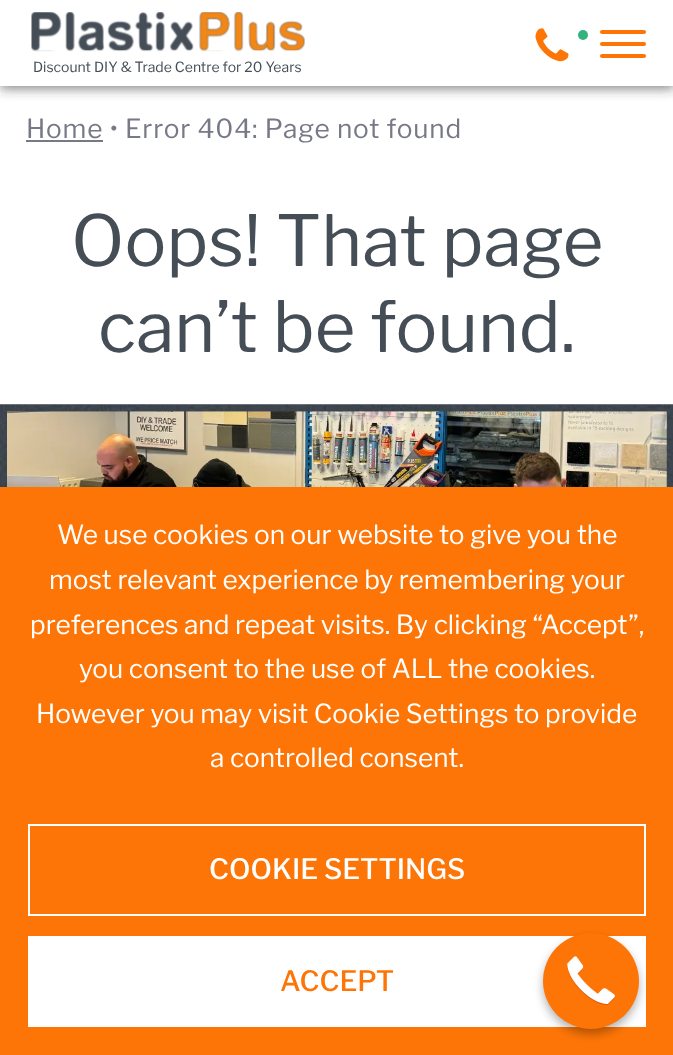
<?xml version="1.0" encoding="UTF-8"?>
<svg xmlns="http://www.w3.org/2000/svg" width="673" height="1055">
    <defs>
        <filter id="blur1" x="-50%" y="-200%" width="200%" height="500%"><feGaussianBlur stdDeviation="6"/></filter>
        <clipPath id="clip1"><path d="M 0 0 H 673 V 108 H 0 Z M 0 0 H 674 V 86 H 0 Z" clip-rule="evenodd"/></clipPath>
        <filter id="blur2" x="-50%" y="-200%" width="200%" height="500%"><feGaussianBlur stdDeviation="5"/></filter>
    </defs>
    <rect width="100%" height="100%" fill="#FFFFFF"/>
    <rect x="0" y="0" width="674" height="86" fill="#000000" fill-opacity="0.15" filter="url(#blur1)"/>
    <rect x="0" y="0" width="673" height="86" fill="#FFFFFF"/>
    <g clip-path="url(#clip1)">
        <rect x="0" y="4" width="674" height="85" fill="#393939" fill-opacity="0.5" filter="url(#blur1)"/>
    </g>
    <image x="535" y="28" width="34" height="34" href="img_01.png"/>
    <circle cx="583" cy="35" r="5" fill="#33B37D"/>
    <rect x="600" y="30" width="46" height="4" rx="2" fill="#FD7506"/>
    <rect x="600" y="42" width="46" height="4" rx="2" fill="#FD7506"/>
    <rect x="600" y="54" width="46" height="4" rx="2" fill="#FD7506"/>
    <image x="31" y="12" width="274" height="40" href="img_02.png"/>
    <text x="33" y="72" font-family="Libre Franklin" font-size="14" fill="#454D56">Discount DIY &amp; Trade Centre for 20 Years</text>
    <rect x="26" y="140" width="77" height="2" fill="#777986"/>
    <text x="26" y="138" font-family="Libre Franklin" font-size="26.25" letter-spacing="0.8" fill="#777986">Home • Error 404: Page not found</text>
    <text x="71" y="266" font-family="Libre Franklin" font-size="70" fill="#454D56">Oops! That page</text>
    <text x="98" y="352" font-family="Libre Franklin" font-size="70" fill="#454D56">can’t be found.</text>
    <image x="0" y="404" width="673" height="83" href="img_03.png"/>
    <image x="7" y="411" width="660" height="76" href="img_04.png"/>
    <rect x="0" y="487" width="673" height="568" fill="#FD7506"/>
    <text x="57" y="544" font-family="Libre Franklin" font-size="26.25" fill="#FFFFFF">We use cookies on our website to give you the</text>
    <text x="49" y="589" font-family="Libre Franklin" font-size="26.25" fill="#FFFFFF">most relevant experience by remembering your</text>
    <text x="30" y="634" font-family="Libre Franklin" font-size="26.25" fill="#FFFFFF">preferences and repeat visits. By clicking “Accept”,</text>
    <text x="79" y="678" font-family="Libre Franklin" font-size="26.25" fill="#FFFFFF">you consent to the use of ALL the cookies.</text>
    <text x="36" y="723" font-family="Libre Franklin" font-size="26.25" fill="#FFFFFF">However you may visit Cookie Settings to provide</text>
    <text x="210" y="767" font-family="Libre Franklin" font-size="26.25" fill="#FFFFFF">a controlled consent.</text>
    <rect x="28" y="824" width="618" height="2" fill="#FFFFFF"/>
    <rect x="644" y="824" width="2" height="91" fill="#FFFFFF"/>
    <rect x="28" y="914" width="618" height="2" fill="#FFFCFC"/>
    <rect x="28" y="824" width="2" height="91" fill="#FFFFFF"/>
    <text x="209" y="879" font-family="Libre Franklin" font-size="28" font-weight="500" fill="#FFFFFF">COOKIE SETTINGS</text>
    <rect x="28" y="936" width="618" height="91" fill="#FFFFFF"/>
    <text x="280" y="991" font-family="Libre Franklin" font-size="28" font-weight="500" fill="#FD7506">ACCEPT</text>
    <rect x="543" y="938" width="96" height="96" rx="48" fill="#000000" fill-opacity="0.3" filter="url(#blur2)"/>
    <circle cx="591" cy="981" r="48" fill="#FD7506"/>
    <image x="567" y="956" width="48" height="49" href="img_05.png"/>
</svg>
